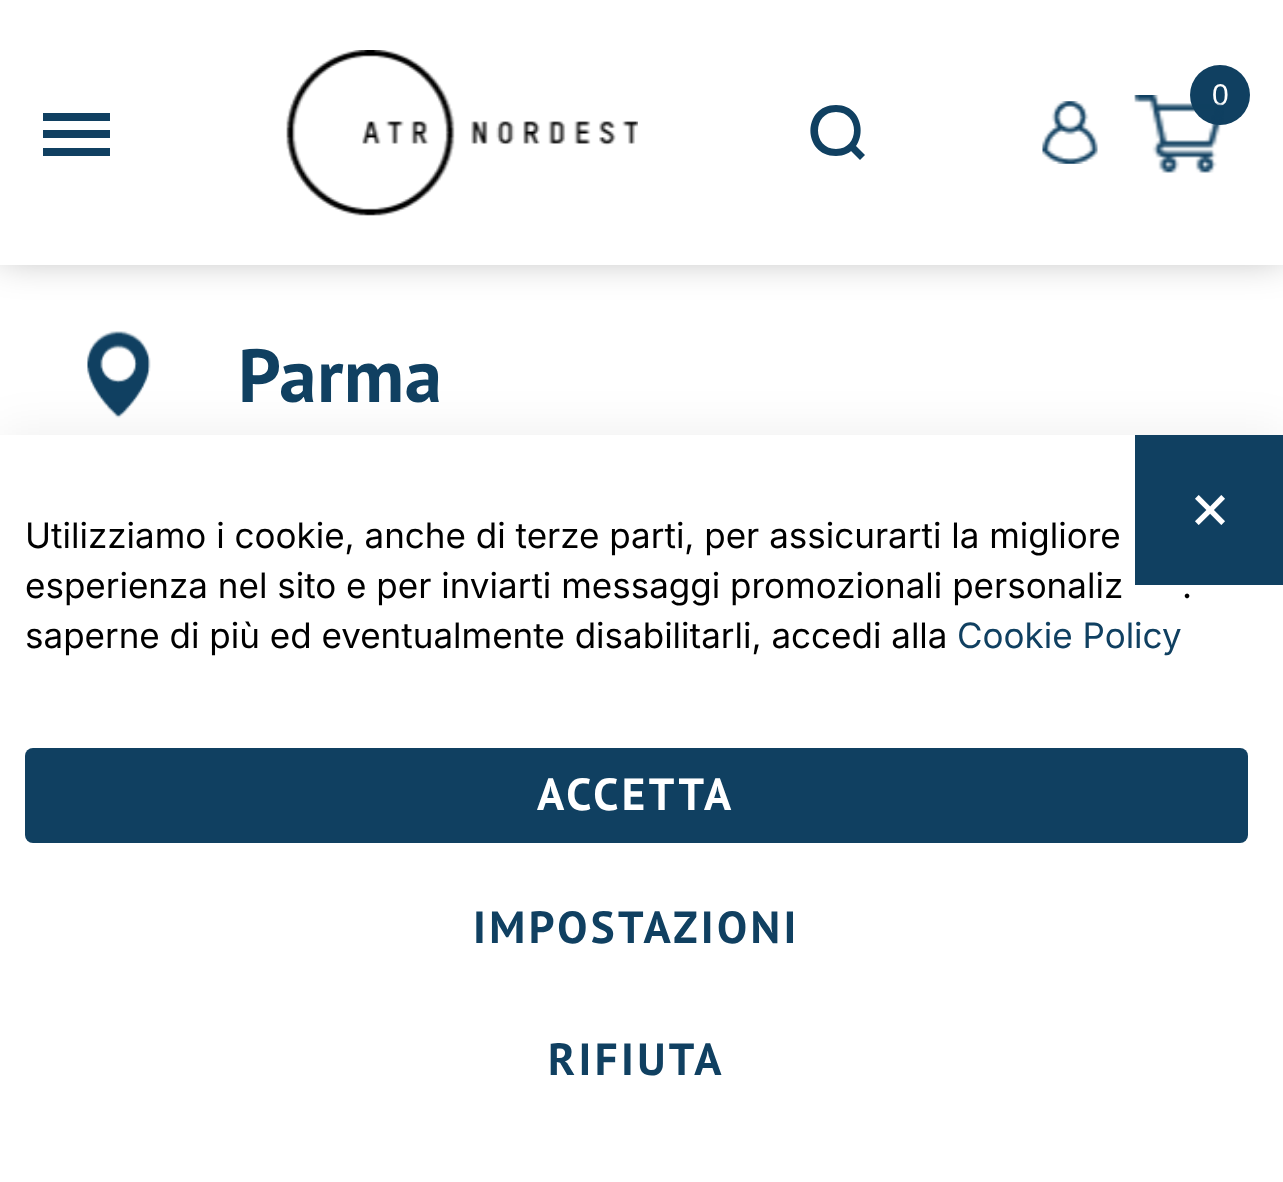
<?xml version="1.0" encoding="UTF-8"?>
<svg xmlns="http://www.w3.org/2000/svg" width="1283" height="1182">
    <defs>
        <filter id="blur1" x="-50%" y="-200%" width="200%" height="500%"><feGaussianBlur stdDeviation="20"/></filter>
        <filter id="blur2" x="-50%" y="-200%" width="200%" height="500%"><feGaussianBlur stdDeviation="22.5"/></filter>
    </defs>
    <rect width="100%" height="100%" fill="#FFFFFF"/>
    <rect x="0" y="-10" width="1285" height="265" fill="#000000" fill-opacity="0.35" filter="url(#blur1)"/>
    <rect x="0" y="0" width="1283" height="265" fill="#FFFFFF"/>
    <image x="286" y="50" width="352" height="166" href="img_01.png"/>
    <circle cx="1220" cy="95" r="30" fill="#104061"/>
    <text x="1212" y="105" font-family="Liberation Sans" font-size="30" fill="#FFFFFF">0</text>
    <image x="1134" y="95" width="90" height="78" href="img_02.png"/>
    <path d="M 848.5 148.5 L 853.5 143.5 L 865 155 L 860 160 Z" fill="#104061"/>
    <path d="M 836 105 C 802 105 802 156 836 156 C 869 156 869 105 836 105 Z M 836 149 C 812 149 812 112 836 112 C 860 112 860 149 836 149 Z" fill="#104061"/>
    <image x="1042" y="101" width="56" height="63" href="img_03.png"/>
    <rect x="43" y="113" width="67" height="8" fill="#104061"/>
    <rect x="43" y="130" width="67" height="8" fill="#104061"/>
    <rect x="43" y="148" width="67" height="8" fill="#104061"/>
    <image x="87" y="331" width="64" height="87" href="img_04.png"/>
    <text x="238" y="402" font-family="PT Sans" font-size="75" font-weight="700" letter-spacing="0.5" fill="#104061">Parma</text>
    <rect x="0" y="430" width="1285" height="748" fill="#000000" fill-opacity="0.06" filter="url(#blur2)"/>
    <rect x="0" y="435" width="1283" height="747" fill="#FFFFFF"/>
    <rect x="1135" y="435" width="148" height="150" fill="#104061"/>
    <text x="1195" y="525" font-family="'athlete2'" font-size="30" letter-spacing="0.5" fill="#FFFFFF">@</text>
    <text font-family="Inter" font-size="35" fill="#000000">
        <tspan x="25" y="548">Utilizziamo i cookie, anche di terze parti, per assicurarti la migliore</tspan>
        <tspan x="25" y="598">esperienza nel sito e per inviarti messaggi promozionali personaliz</tspan>
    </text>
    <text x="1182" y="598" font-family="Inter" font-size="35" fill="#000000">.</text>
    <text x="25" y="648" font-family="Inter" font-size="35" fill="#000000">saperne di più ed eventualmente disabilitarli, accedi alla</text>
    <text x="957" y="648" font-family="Inter" font-size="35" fill="#104061">Cookie Policy</text>
    <rect x="25" y="748" width="1223" height="95" rx="8" fill="#104061"/>
    <text x="537" y="810" font-family="PT Sans" font-size="45" font-weight="700" letter-spacing="3.4" fill="#FFFFFF">ACCETTA</text>
    <text x="473" y="943" font-family="PT Sans" font-size="45" font-weight="700" letter-spacing="3.4" fill="#104061">IMPOSTAZIONI</text>
    <text x="548" y="1075" font-family="PT Sans" font-size="45" font-weight="700" letter-spacing="3.4" fill="#104061">RIFIUTA</text>
</svg>
